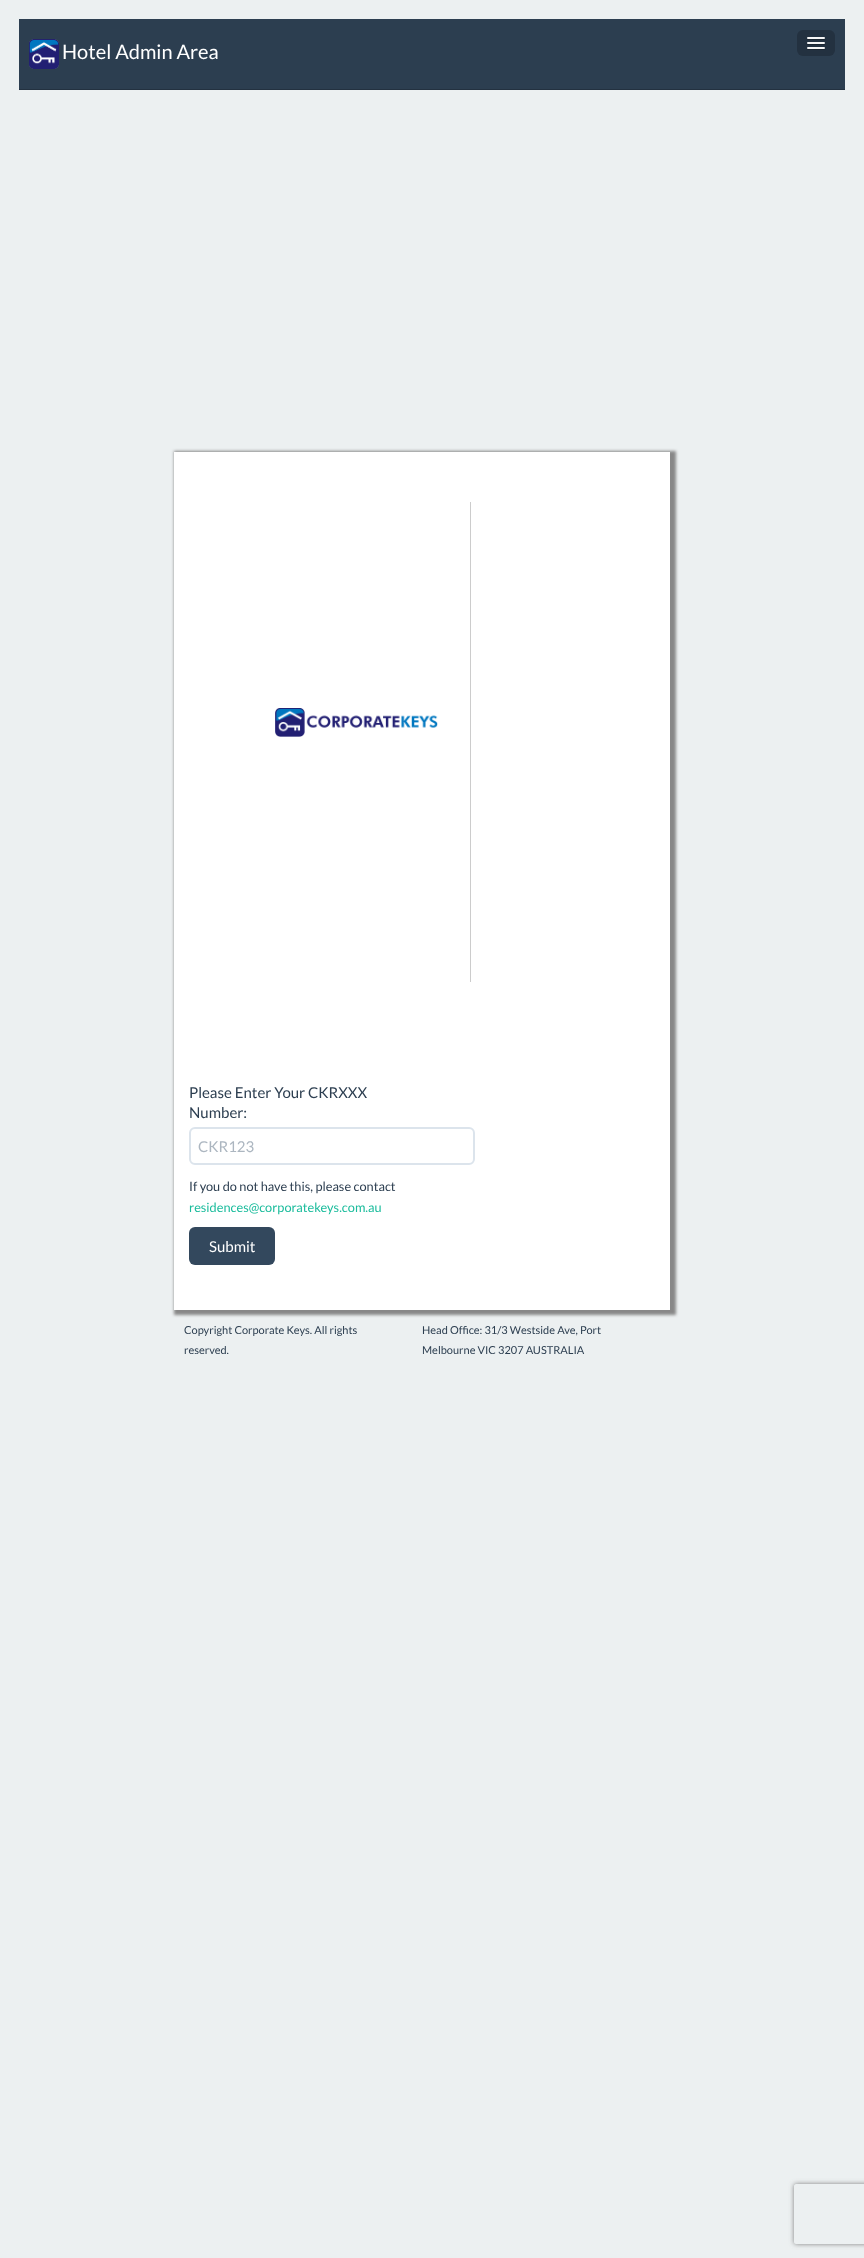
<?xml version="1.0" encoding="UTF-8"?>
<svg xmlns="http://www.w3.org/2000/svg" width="864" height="2258">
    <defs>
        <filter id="blur1" x="-50%" y="-200%" width="200%" height="500%"><feGaussianBlur stdDeviation="1.5"/></filter>
        <clipPath id="clip1"><path d="M 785 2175 H 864 V 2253 H 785 Z M 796 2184 H 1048 C 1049 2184 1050 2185 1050 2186 V 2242 C 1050 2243 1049 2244 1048 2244 H 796 C 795 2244 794 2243 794 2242 V 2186 C 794 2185 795 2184 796 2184 Z" clip-rule="evenodd"/></clipPath>
        <filter id="blur2" x="-50%" y="-200%" width="200%" height="500%"><feGaussianBlur stdDeviation="2.5"/></filter>
    </defs>
    <rect width="100%" height="100%" fill="#ECF0F1"/>
    <rect x="19" y="19" width="826" height="70" fill="#2C3E50"/>
    <rect x="19" y="89" width="826" height="1" fill="#233140"/>
    <image x="29" y="39" width="30" height="30" href="img_01.png"/>
    <text x="62" y="59" font-family="Lato" font-size="20" fill="#FFFFFF">Hotel Admin Area</text>
    <rect x="797" y="30" width="38" height="26" rx="6" fill="#233140"/>
    <path d="M 807 38.5 C 806 40.5 810.5 40 810.5 40 H 821.5 C 821.5 40 826 40.5 825 38.5 C 824 39.5 817.5 39 816 39 C 814.5 39 808 39.5 807 38.5 Z" fill="#1A2530"/>
    <rect x="807" y="37" width="18" height="2" rx="1" fill="#F5F5F5"/>
    <path d="M 807 43.5 C 806 45.5 810.5 45 810.5 45 H 821.5 C 821.5 45 826 45.5 825 43.5 C 824 44.5 817.5 44 816 44 C 814.5 44 808 44.5 807 43.5 Z" fill="#1A2530"/>
    <rect x="807" y="42" width="18" height="2" rx="1" fill="#F5F5F5"/>
    <path d="M 807 48.5 C 806 50.5 810.5 50 810.5 50 H 821.5 C 821.5 50 826 50.5 825 48.5 C 824 49.5 817.5 49 816 49 C 814.5 49 808 49.5 807 48.5 Z" fill="#1A2530"/>
    <rect x="807" y="47" width="18" height="2" rx="1" fill="#F5F5F5"/>
    <rect x="174" y="451" width="502" height="864" fill="#888888" filter="url(#blur1)"/>
    <rect x="174" y="452" width="496" height="858" fill="#FFFFFF"/>
    <rect x="470" y="502" width="1" height="480" fill="#CCCCCC"/>
    <image x="275" y="708" width="163" height="29" href="img_02.png"/>
    <text font-family="Lato" font-size="15" fill="#2C3E50">
        <tspan x="189" y="1098">Please Enter Your CKRXXX</tspan>
        <tspan x="189" y="1118">Number:</tspan>
    </text>
    <rect x="190" y="1128" width="284" height="36" rx="5" fill="none" stroke="#DCE4EC" stroke-width="2"/>
    <text x="198" y="1152" font-family="Lato" font-size="15" fill="#ACB6C0">CKR123</text>
    <text x="189" y="1191" font-family="Lato" font-size="12.75" fill="#2C3E50">If you do not have this, please contact</text>
    <text x="189" y="1212" font-family="Lato" font-size="12.75" fill="#1ABC9C">residences@corporatekeys.com.au</text>
    <rect x="189" y="1227" width="86" height="38" rx="6" fill="#33485D"/>
    <text x="209" y="1252" font-family="Lato" font-size="15" fill="#FFFFFF">Submit</text>
    <text font-family="Lato" font-size="11" fill="#2C3E50">
        <tspan x="184" y="1334">Copyright Corporate Keys. All rights</tspan>
        <tspan x="184" y="1354">reserved.</tspan>
    </text>
    <text font-family="Lato" font-size="11" fill="#2C3E50">
        <tspan x="422" y="1334">Head Office: 31/3 Westside Ave, Port</tspan>
        <tspan x="422" y="1354">Melbourne VIC 3207 AUSTRALIA</tspan>
    </text>
    <g clip-path="url(#clip1)">
        <rect x="794" y="2184" width="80" height="60" rx="2" fill="#808080" filter="url(#blur2)"/>
    </g>
</svg>
